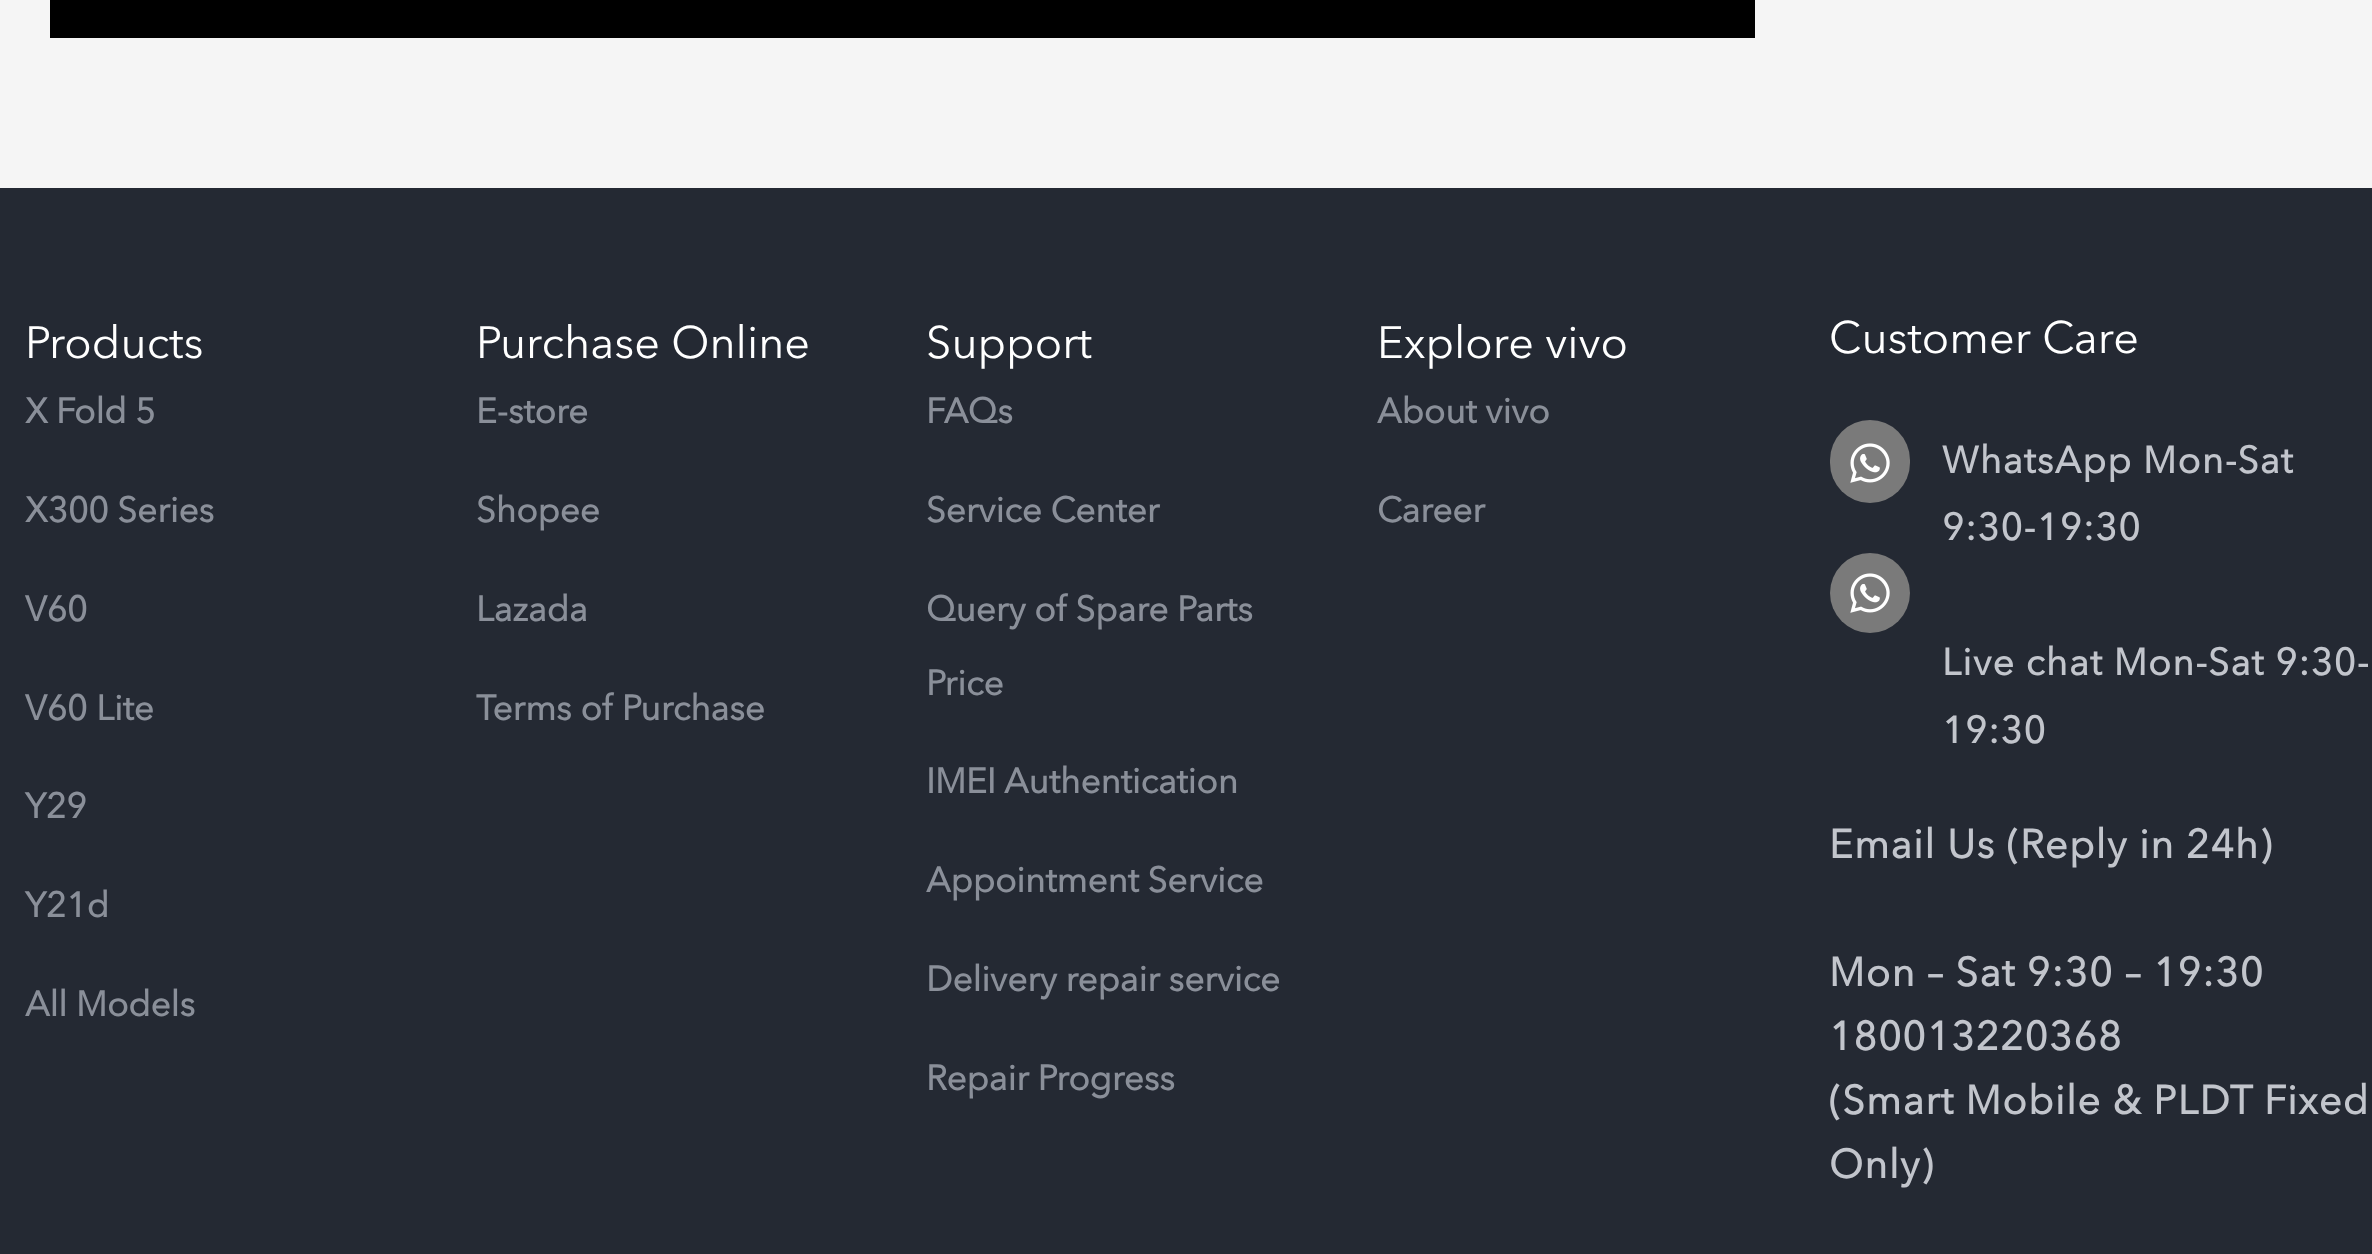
<?xml version="1.0" encoding="UTF-8"?>
<svg xmlns="http://www.w3.org/2000/svg" width="2372" height="1254">
    <rect width="100%" height="100%" fill="#F5F5F5"/>
    <rect x="50" y="0" width="1705" height="38" fill="#000000"/>
    <rect x="0" y="188" width="2372" height="1066" fill="#242933"/>
    <text x="25" y="358" font-family="Avenir Next" font-size="45" fill="#FFFFFF">Products</text>
    <text x="25" y="423" font-family="Avenir Next" font-size="35" font-weight="700" fill="#8A8F99">X Fold 5</text>
    <text x="25" y="522" font-family="Avenir Next" font-size="35" font-weight="700" fill="#8A8F99">X300 Series</text>
    <text x="25" y="621" font-family="Avenir Next" font-size="35" font-weight="700" fill="#8A8F99">V60</text>
    <text x="25" y="720" font-family="Avenir Next" font-size="35" font-weight="700" fill="#8A8F99">V60 Lite</text>
    <text x="25" y="818" font-family="Avenir Next" font-size="35" font-weight="700" fill="#8A8F99">Y29</text>
    <text x="25" y="917" font-family="Avenir Next" font-size="35" font-weight="700" fill="#8A8F99">Y21d</text>
    <text x="25" y="1016" font-family="Avenir Next" font-size="35" font-weight="700" fill="#8A8F99">All Models</text>
    <text x="476" y="358" font-family="Avenir Next" font-size="45" fill="#FFFFFF">Purchase Online</text>
    <text x="476" y="423" font-family="Avenir Next" font-size="35" font-weight="700" fill="#8A8F99">E-store</text>
    <text x="476" y="522" font-family="Avenir Next" font-size="35" font-weight="700" fill="#8A8F99">Shopee</text>
    <text x="476" y="621" font-family="Avenir Next" font-size="35" font-weight="700" fill="#8A8F99">Lazada</text>
    <text x="476" y="720" font-family="Avenir Next" font-size="35" font-weight="700" fill="#8A8F99">Terms of Purchase</text>
    <text x="926" y="358" font-family="Avenir Next" font-size="45" fill="#FFFFFF">Support</text>
    <text x="926" y="423" font-family="Avenir Next" font-size="35" font-weight="700" fill="#8A8F99">FAQs</text>
    <text x="926" y="522" font-family="Avenir Next" font-size="35" font-weight="700" fill="#8A8F99">Service Center</text>
    <text x="926" y="621" font-family="Avenir Next" font-size="35" font-weight="700" fill="#8A8F99">Query of Spare Parts</text>
    <text x="926" y="695" font-family="Avenir Next" font-size="35" font-weight="700" fill="#8A8F99">Price</text>
    <text x="926" y="793" font-family="Avenir Next" font-size="35" font-weight="700" fill="#8A8F99">IMEI Authentication</text>
    <text x="926" y="892" font-family="Avenir Next" font-size="35" font-weight="700" fill="#8A8F99">Appointment Service</text>
    <text x="926" y="991" font-family="Avenir Next" font-size="35" font-weight="700" fill="#8A8F99">Delivery repair service</text>
    <text x="926" y="1090" font-family="Avenir Next" font-size="35" font-weight="700" fill="#8A8F99">Repair Progress</text>
    <text x="1377" y="358" font-family="Avenir Next" font-size="45" fill="#FFFFFF">Explore vivo</text>
    <text x="1377" y="423" font-family="Avenir Next" font-size="35" font-weight="700" fill="#8A8F99">About vivo</text>
    <text x="1377" y="522" font-family="Avenir Next" font-size="35" font-weight="700" fill="#8A8F99">Career</text>
    <text x="1829" y="353" font-family="Avenir Next" font-size="45" fill="#FFFFFF">Customer Care</text>
    <rect x="1830" y="420" width="80" height="83" rx="40" fill="#7A7A7A"/>
    <image x="1850" y="443" width="40" height="40" href="img_01.png"/>
    <text font-family="Avenir Next" font-size="37.5" font-weight="700" letter-spacing="1.25" fill="#C2C5CC">
        <tspan x="1942" y="473">WhatsApp Mon-Sat</tspan>
        <tspan x="1942" y="540">9:30-19:30</tspan>
    </text>
    <text font-family="Avenir Next" font-size="37.5" font-weight="700" letter-spacing="1.25" fill="#C2C5CC">
        <tspan x="1942" y="675">Live chat Mon-Sat 9:30-</tspan>
        <tspan x="1942" y="743">19:30</tspan>
    </text>
    <circle cx="1870" cy="593" r="40" fill="#7A7A7A"/>
    <image x="1850" y="573" width="40" height="40" href="img_01.png"/>
    <text x="1829" y="858" font-family="Avenir Next" font-size="40" font-weight="700" letter-spacing="1.25" fill="#C2C5CC">Email Us (Reply in 24h)</text>
    <text font-family="Avenir Next" font-size="40" font-weight="700" letter-spacing="1.25" fill="#C2C5CC">
        <tspan x="1829" y="986">Mon – Sat 9:30 – 19:30</tspan>
        <tspan x="1829" y="1050">180013220368</tspan>
        <tspan x="1829" y="1114">(Smart Mobile &amp; PLDT Fixed</tspan>
        <tspan x="1829" y="1178">Only)</tspan>
    </text>
</svg>
